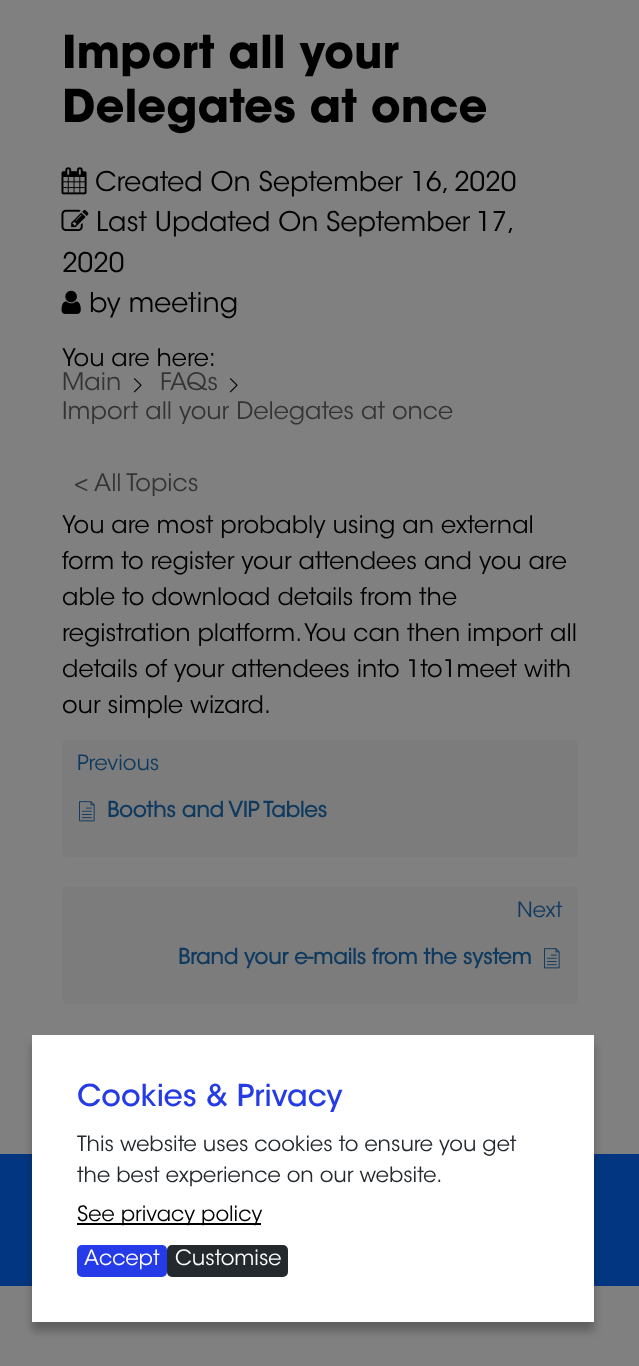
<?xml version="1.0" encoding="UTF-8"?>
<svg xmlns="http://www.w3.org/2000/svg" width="639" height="1366">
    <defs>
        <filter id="blur1" x="-50%" y="-200%" width="200%" height="500%"><feGaussianBlur stdDeviation="4.5"/></filter>
    </defs>
    <rect width="100%" height="100%" fill="#808080"/>
    <text font-family="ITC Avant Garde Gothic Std" font-size="45" font-weight="700" fill="#000000">
        <tspan x="62" y="68">Import all your</tspan>
        <tspan x="62" y="122">Delegates at once</tspan>
    </text>
    <image x="61" y="167" width="26" height="28" href="img_01.png"/>
    <text x="95" y="191" font-family="ITC Avant Garde Gothic Std" font-size="27" font-weight="300" fill="#000000">Created On September 16, 2020</text>
    <image x="61" y="209" width="28" height="22" href="img_02.png"/>
    <text x="96" y="231" font-family="ITC Avant Garde Gothic Std" font-size="27" font-weight="300" fill="#000000">Last Updated On</text>
    <text x="326" y="231" word-spacing="-2" font-family="ITC Avant Garde Gothic Std" font-size="27" font-weight="300" fill="#000000">September 17,</text>
    <text x="62" y="272" font-family="ITC Avant Garde Gothic Std" font-size="27" font-weight="300" fill="#000000">2020</text>
    <image x="61" y="290" width="20" height="24" href="img_03.png"/>
    <text x="89" y="312" font-family="ITC Avant Garde Gothic Std" font-size="27" font-weight="300" fill="#000000">by meeting</text>
    <text x="62" y="366" font-family="ITC Avant Garde Gothic Std" font-size="24" font-weight="300" fill="#000000">You are here:</text>
    <text x="62" y="390" font-family="ITC Avant Garde Gothic Std" font-size="24" font-weight="300" fill="#343434">Main</text>
    <image x="133" y="378" width="9" height="15" href="img_04.png"/>
    <text x="160" y="390" font-family="ITC Avant Garde Gothic Std" font-size="24" font-weight="300" fill="#343434">FAQs</text>
    <image x="229" y="378" width="9" height="15" href="img_04.png"/>
    <text x="62" y="419" font-family="ITC Avant Garde Gothic Std" font-size="24" font-weight="300" fill="#343434">Import all your Delegates at once</text>
    <text x="74" y="491" font-family="ITC Avant Garde Gothic Std" font-size="24" font-weight="300" fill="#343434">&lt; All Topics</text>
    <text font-family="ITC Avant Garde Gothic Std" font-size="24" font-weight="300" fill="#000000">
        <tspan x="62" y="533">You are most probably using an external</tspan>
        <tspan x="62" y="569">form to register your attendees and you are</tspan>
        <tspan x="62" y="605">able to download details from the</tspan>
        <tspan x="62" y="641">registration platform. You can then import all</tspan>
        <tspan x="62" y="677">details of your attendees into 1to1meet with</tspan>
        <tspan x="62" y="713">our simple wizard.</tspan>
    </text>
    <rect x="62" y="740" width="516" height="117" rx="5" fill="#7C7C7C"/>
    <text x="77" y="770" font-family="ITC Avant Garde Gothic Std" font-size="21" font-weight="300" fill="#0F3A5F">Previous</text>
    <image x="79" y="801" width="16" height="21" href="img_05.png"/>
    <text x="107" y="817" font-family="'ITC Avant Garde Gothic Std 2'" font-size="21" font-weight="700" fill="#0F3A5F">Booths and VIP Tables</text>
    <rect x="62" y="887" width="516" height="117" rx="5" fill="#7C7C7C"/>
    <text x="517" y="917" font-family="ITC Avant Garde Gothic Std" font-size="21" font-weight="300" fill="#0F3A5F">Next</text>
    <text x="178" y="964" font-family="'ITC Avant Garde Gothic Std 2'" font-size="21" font-weight="700" fill="#0F3A5F">Brand your e-mails from the system</text>
    <image x="544" y="948" width="16" height="21" href="img_05.png"/>
    <rect x="0" y="1154" width="639" height="132" fill="#033680"/>
    <rect x="32" y="1044" width="562" height="287" fill="#000000" fill-opacity="0.25" filter="url(#blur1)"/>
    <rect x="32" y="1035" width="562" height="287" fill="#FFFFFF"/>
    <text x="77" y="1106" font-family="ITC Avant Garde Gothic Std" font-size="30" font-weight="500" fill="#253BE7">Cookies &amp; Privacy</text>
    <text font-family="ITC Avant Garde Gothic Std" font-size="21" font-weight="300" fill="#24292E">
        <tspan x="77" y="1151">This website uses cookies to ensure you get</tspan>
        <tspan x="77" y="1182">the best experience on our website.</tspan>
    </text>
    <rect x="77" y="1223" width="184" height="2" fill="#000001"/>
    <text x="77" y="1221" font-family="ITC Avant Garde Gothic Std" font-size="21" font-weight="300" fill="#000000">See privacy policy</text>
    <rect x="77" y="1245" width="90" height="32" rx="5" fill="#253BE7"/>
    <text x="84" y="1265" font-family="ITC Avant Garde Gothic Std" font-size="21" font-weight="300" fill="#FEFEFE">Accept</text>
    <rect x="167" y="1245" width="121" height="32" rx="5" fill="#24292E"/>
    <text x="175" y="1265" font-family="ITC Avant Garde Gothic Std" font-size="21" font-weight="300" fill="#FEFEFE">Customise</text>
</svg>
